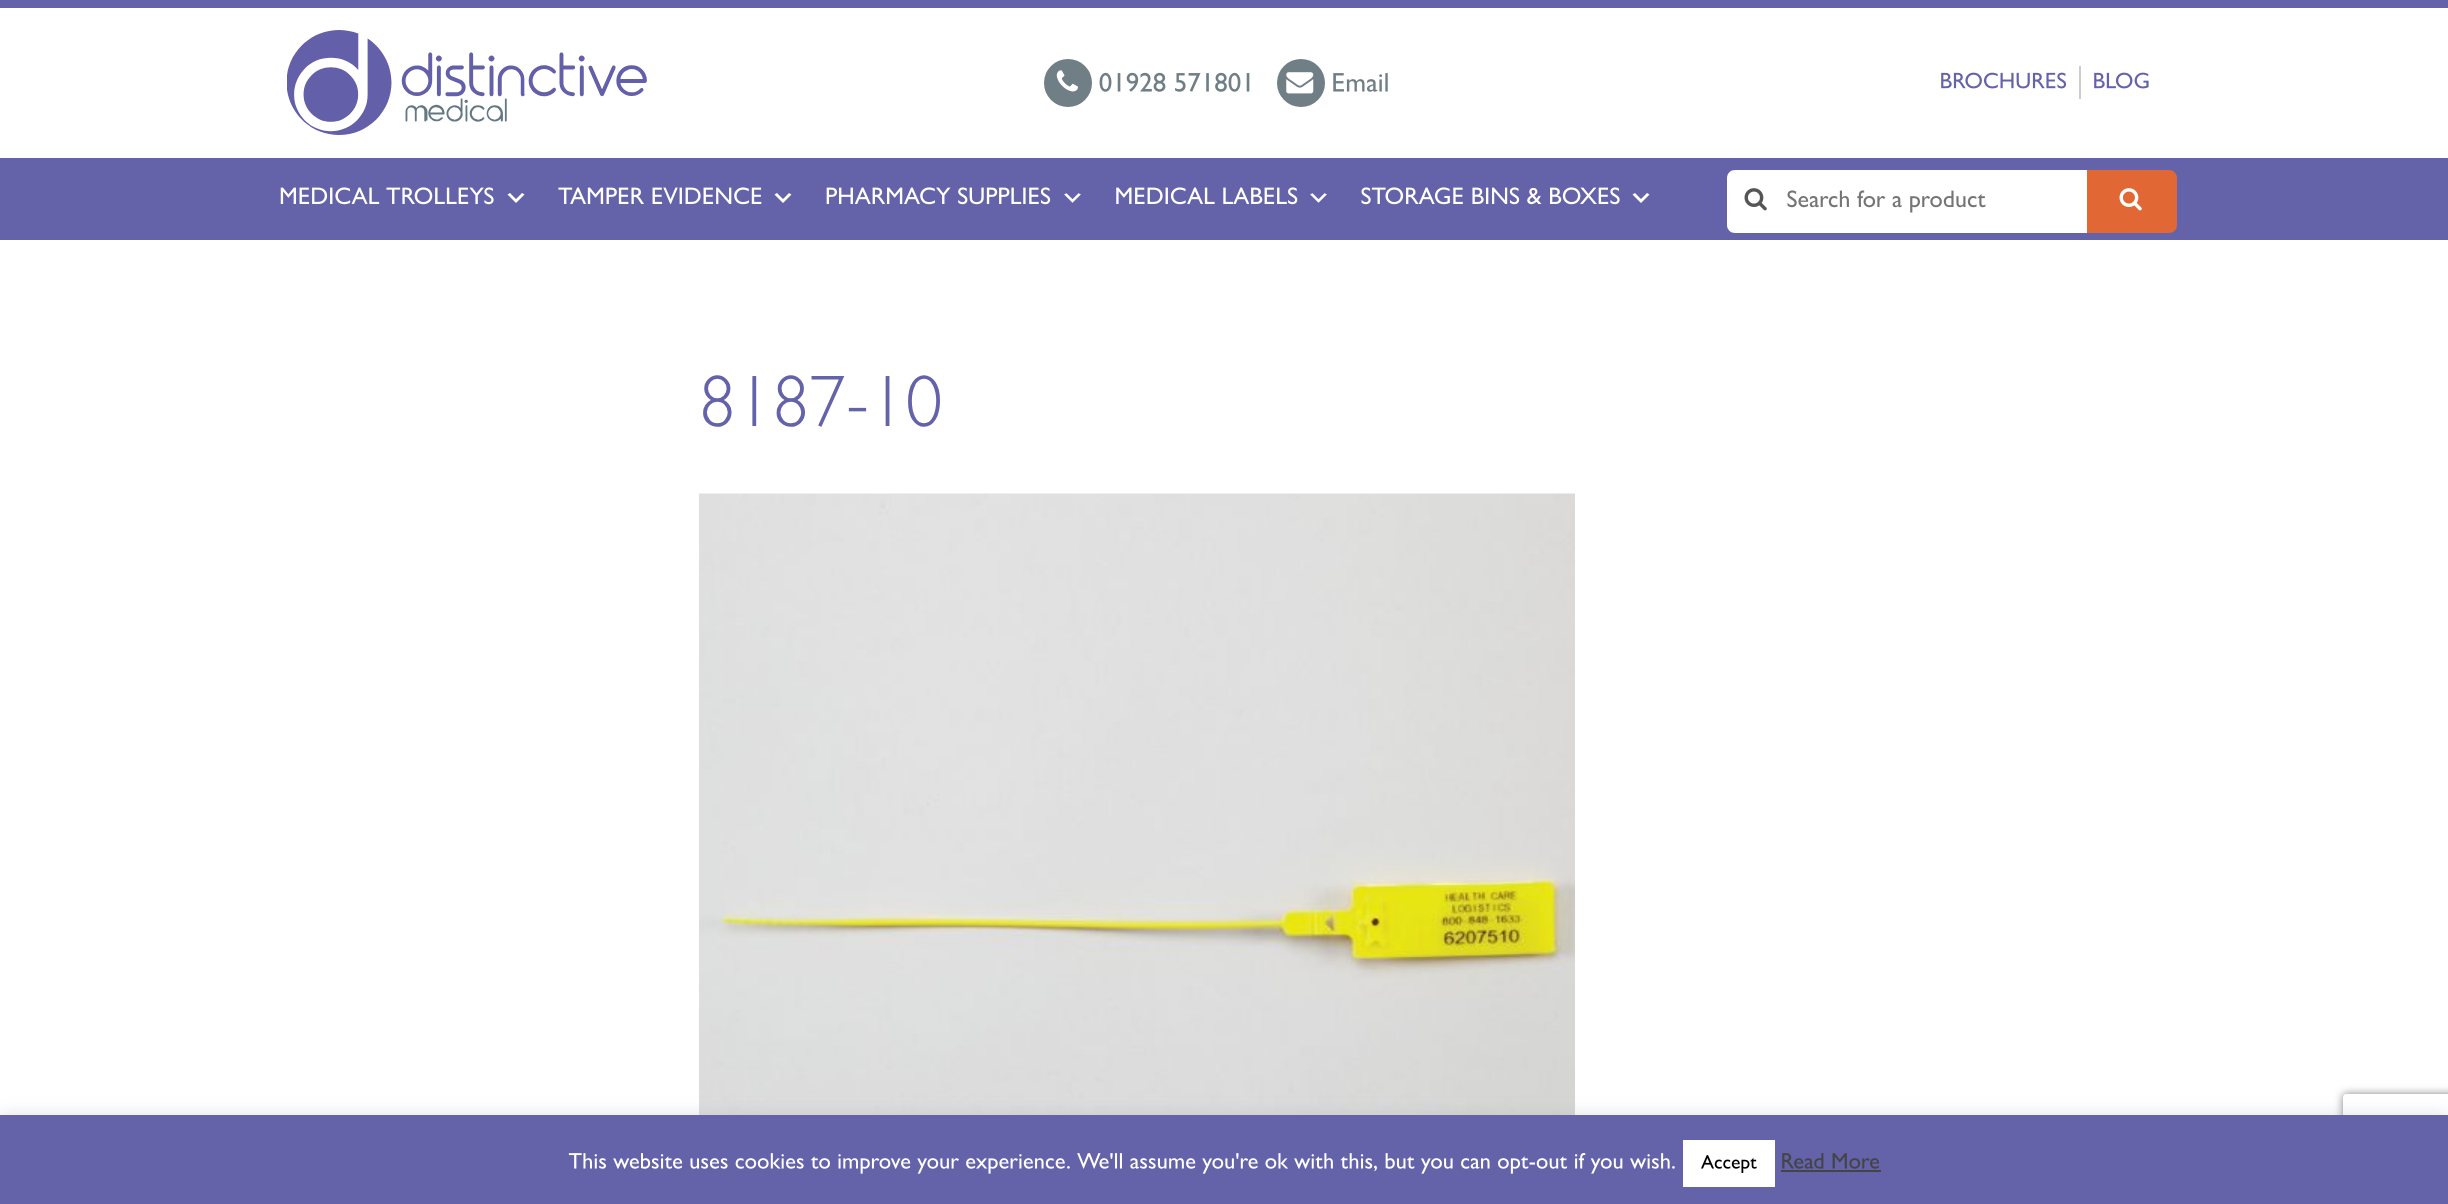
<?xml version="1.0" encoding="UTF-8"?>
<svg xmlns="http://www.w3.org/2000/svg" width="2448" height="1204">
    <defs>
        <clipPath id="clip1"><path d="M 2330 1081 H 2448 V 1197 H 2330 Z M 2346 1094 H 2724 C 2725.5 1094 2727 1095.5 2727 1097 V 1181 C 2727 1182.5 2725.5 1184 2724 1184 H 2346 C 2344.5 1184 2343 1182.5 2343 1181 V 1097 C 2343 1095.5 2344.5 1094 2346 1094 Z" clip-rule="evenodd"/></clipPath>
        <filter id="blur1" x="-50%" y="-200%" width="200%" height="500%"><feGaussianBlur stdDeviation="4"/></filter>
        <filter id="blur2" x="-50%" y="-200%" width="200%" height="500%"><feGaussianBlur stdDeviation="7.5"/></filter>
    </defs>
    <rect width="100%" height="100%" fill="#FFFFFF"/>
    <rect x="0" y="0" width="2448" height="8" fill="#6462A9"/>
    <image x="287" y="30" width="360" height="105" href="img_01.png"/>
    <circle cx="1068" cy="83" r="24" fill="#707E85"/>
    <image x="1056" y="70" width="22" height="22" href="img_02.png"/>
    <image x="1099" y="72" width="151" height="20" href="img_03.png"/>
    <circle cx="1301" cy="83" r="24" fill="#707E85"/>
    <image x="1286" y="72" width="28" height="22" href="img_04.png"/>
    <image x="1333" y="73" width="55" height="19" href="img_05.png"/>
    <rect x="2079" y="66" width="2" height="33" fill="#CCCCCC"/>
    <image x="1941" y="72" width="126" height="17" href="img_06.png"/>
    <image x="2094" y="72" width="55" height="17" href="img_07.png"/>
    <rect x="0" y="158" width="2448" height="82" fill="#6462A9"/>
    <image x="280" y="187" width="214" height="18" href="img_08.png"/>
    <path d="M 510 193 L 516 199 L 522 193 L 524.5 194.5 L 516 203 L 507.5 194.5 Z" fill="#FFFFFF"/>
    <image x="558" y="187" width="204" height="18" href="img_09.png"/>
    <path d="M 777 193 L 783 199 L 789 193 L 791.5 194.5 L 783 203 L 774.5 194.5 Z" fill="#FFFFFF"/>
    <image x="826" y="187" width="225" height="18" href="img_10.png"/>
    <image x="1064" y="193" width="17" height="10" href="img_11.png"/>
    <image x="1116" y="187" width="182" height="18" href="img_12.png"/>
    <image x="1310" y="193" width="17" height="10" href="img_11.png"/>
    <image x="1361" y="187" width="259" height="18" href="img_13.png"/>
    <path d="M 1635 193 L 1641 199 L 1647 193 L 1649.5 194.5 L 1641 203 L 1632.5 194.5 Z" fill="#FFFFFF"/>
    <path d="M 1735 170 H 2087 V 233 H 1735 C 1730.5 233 1727 229.5 1727 225 V 178 C 1727 173.5 1730.5 170 1735 170 Z" fill="#FFFFFF"/>
    <image x="1787" y="190" width="199" height="23" href="img_14.png"/>
    <path d="M 2087 170 H 2169 C 2173.5 170 2177 173.5 2177 178 V 225 C 2177 229.5 2173.5 233 2169 233 H 2087 Z" fill="#E16734"/>
    <image x="2119" y="188" width="23" height="23" href="img_15.png"/>
    <image x="1744" y="188" width="23" height="23" href="img_16.png"/>
    <text x="699" y="426" font-family="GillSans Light" font-size="73.5" font-weight="300" fill="#6462A9">8187-10</text>
    <image x="699" y="493" width="876" height="622" href="img_17.png"/>
    <g clip-path="url(#clip1)">
        <rect x="2343" y="1094" width="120" height="90" rx="3" fill="#808080" filter="url(#blur1)"/>
    </g>
    <rect x="0" y="1113" width="2448" height="90" fill="#ACABAB" fill-opacity="0.3" filter="url(#blur2)"/>
    <rect x="0" y="1115" width="2448" height="89" fill="#6462A9"/>
    <image x="568" y="1153" width="1107" height="21" href="img_18.png"/>
    <rect x="1683" y="1140" width="92" height="47" fill="#FFFFFF"/>
    <image x="1701" y="1155" width="56" height="18" href="img_19.png"/>
    <image x="1782" y="1153" width="98" height="16" href="img_20.png"/>
    <rect x="1781" y="1170" width="100" height="2" fill="#444444"/>
</svg>
